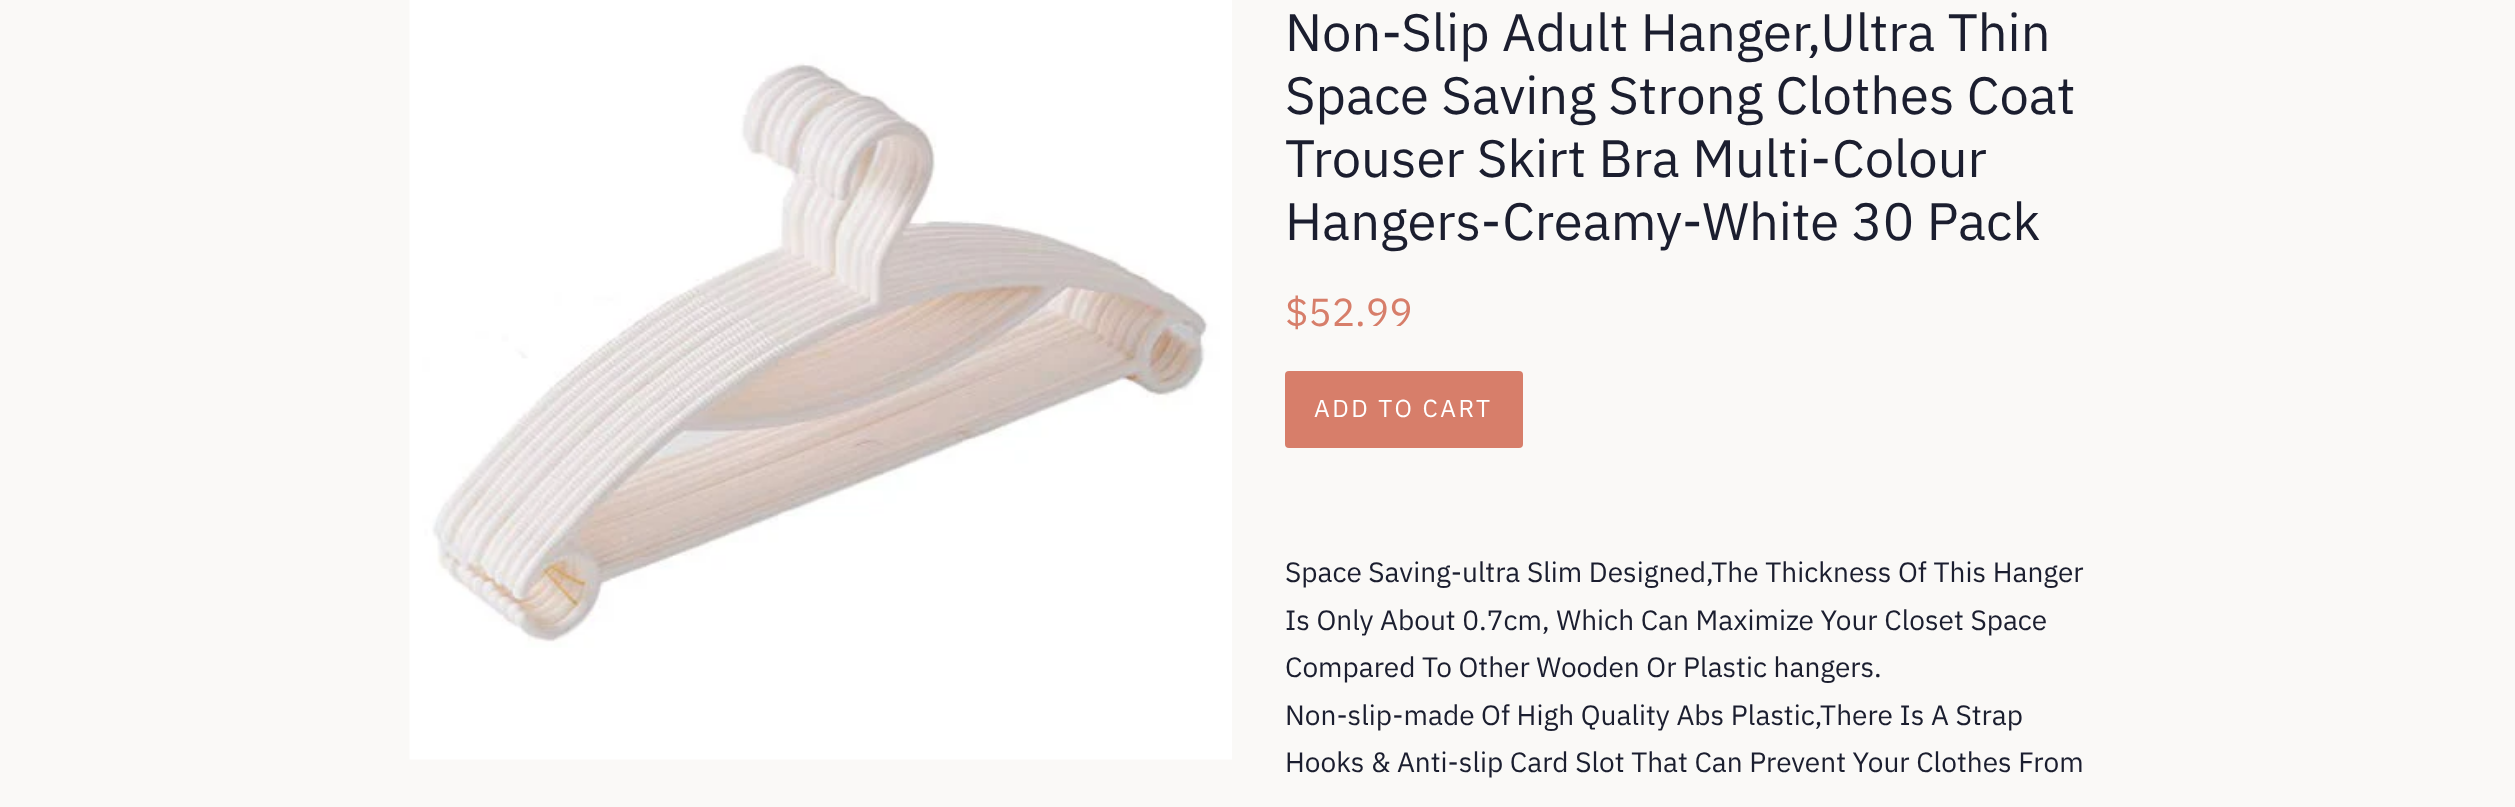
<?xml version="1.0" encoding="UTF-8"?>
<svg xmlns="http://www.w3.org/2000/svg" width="2515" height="807">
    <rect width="100%" height="100%" fill="#FAF9F7"/>
    <image x="409" y="0" width="823" height="760" href="img_01.png"/>
    <text font-family="IBM Plex Sans" font-size="52.5" fill="#1B1E2F">
        <tspan x="1285" y="51">Non-Slip Adult Hanger,Ultra Thin</tspan>
        <tspan x="1285" y="114">Space Saving Strong Clothes Coat</tspan>
        <tspan x="1285" y="177">Trouser Skirt Bra Multi-Colour</tspan>
        <tspan x="1285" y="240">Hangers-Creamy-White 30 Pack</tspan>
    </text>
    <text x="1285" y="326" font-family="IBM Plex Sans" font-size="39" fill="#D77E6A">$52.99</text>
    <rect x="1285" y="371" width="238" height="77" rx="4" fill="#D77E6A"/>
    <text x="1314" y="417" font-family="IBM Plex Sans" font-size="24.5" letter-spacing="2.5" fill="#FFFFFF">ADD TO CART</text>
    <text font-family="IBM Plex Sans" font-size="28" fill="#1B1E2F">
        <tspan x="1285" y="582">Space Saving-ultra Slim Designed,The Thickness Of This Hanger</tspan>
        <tspan x="1285" y="630">Is Only About 0.7cm, Which Can Maximize Your Closet Space</tspan>
        <tspan x="1285" y="677">Compared To Other Wooden Or Plastic hangers.</tspan>
        <tspan x="1285" y="725">Non-slip-made Of High Quality Abs Plastic,There Is A Strap</tspan>
        <tspan x="1285" y="772">Hooks &amp; Anti-slip Card Slot That Can Prevent Your Clothes From</tspan>
    </text>
</svg>
